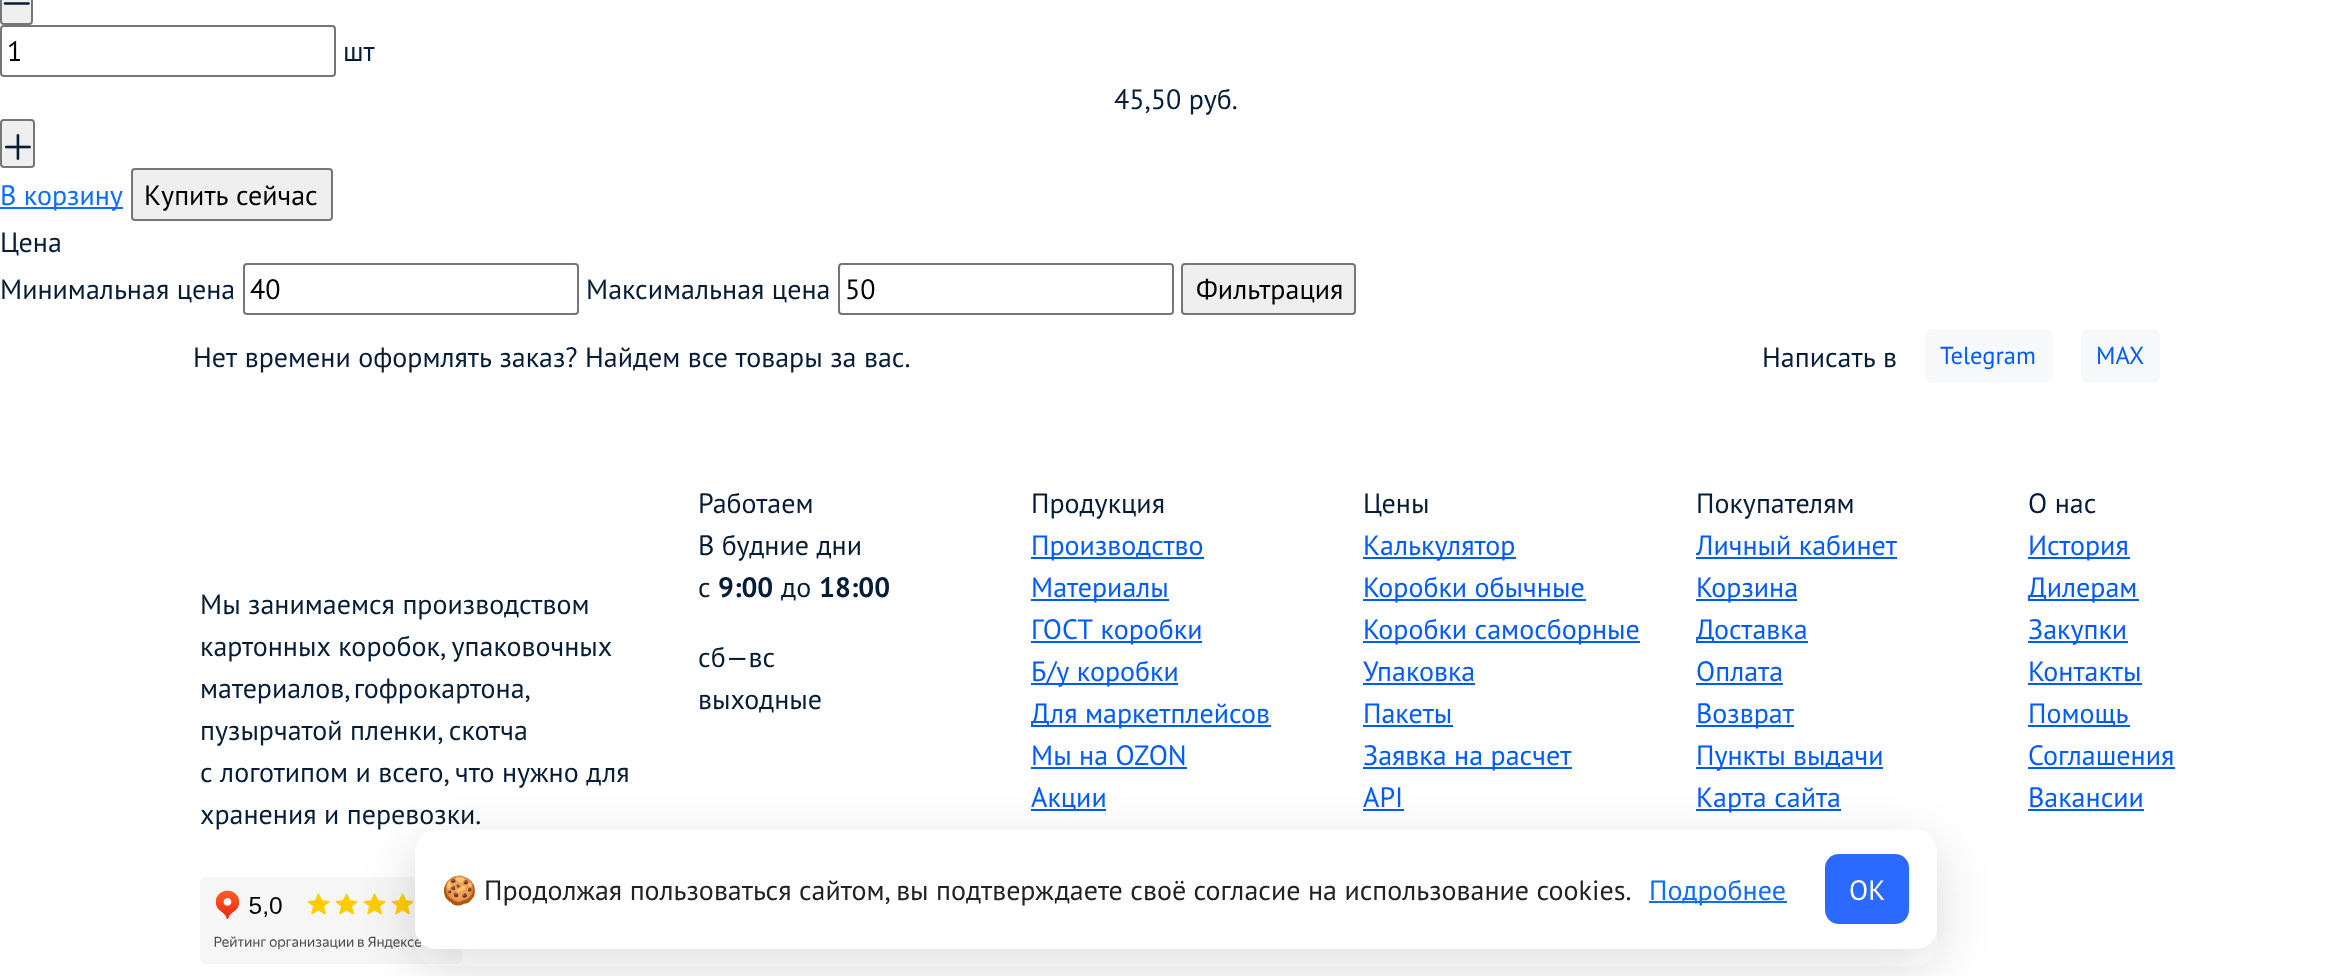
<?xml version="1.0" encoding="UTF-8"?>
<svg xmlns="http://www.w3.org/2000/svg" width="2352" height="976">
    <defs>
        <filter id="blur1" x="-50%" y="-200%" width="200%" height="500%"><feGaussianBlur stdDeviation="26"/></filter>
    </defs>
    <rect width="100%" height="100%" fill="#FFFFFF"/>
    <rect x="1" y="-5" width="31" height="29" rx="3" fill="#EFEFEF" stroke="#767676" stroke-width="2"/>
    <path d="M 5 3.5 H 28.5" fill="none" stroke="#051D36" stroke-width="2.6" stroke-linecap="round" stroke-linejoin="round"/>
    <rect x="1" y="26" width="334" height="50" rx="3" fill="none" stroke="#767676" stroke-width="2"/>
    <text x="7" y="61" font-family="PT Sans" font-size="28" fill="#000000">1</text>
    <text x="343" y="61" font-family="PT Sans" font-size="28" fill="#051D36">шт</text>
    <text x="1114" y="109" font-family="PT Sans" font-size="28" fill="#051D36">45,50 руб.</text>
    <rect x="1" y="120" width="33" height="47" rx="3" fill="#EFEFEF" stroke="#767676" stroke-width="2"/>
    <image x="5" y="134" width="26" height="26" href="img_01.png"/>
    <rect x="0" y="207" width="123" height="2" fill="#0D6EFD"/>
    <text x="0" y="205" font-family="PT Sans" font-size="28" fill="#0D6EFD">В корзину</text>
    <rect x="132" y="169" width="200" height="51" rx="3" fill="#EFEFEF" stroke="#767676" stroke-width="2"/>
    <text x="144" y="205" font-family="PT Sans" font-size="28" fill="#000000">Купить сейчас</text>
    <text font-family="PT Sans" font-size="28" fill="#051D36">
        <tspan x="0" y="252">Цена</tspan>
        <tspan x="0" y="299">Минимальная цена</tspan>
    </text>
    <rect x="244" y="264" width="334" height="50" rx="3" fill="none" stroke="#767676" stroke-width="2"/>
    <text x="250" y="299" font-family="PT Sans" font-size="28" fill="#000000">40</text>
    <text x="586" y="299" font-family="PT Sans" font-size="28" fill="#051D36">Максимальная цена</text>
    <rect x="839" y="264" width="334" height="50" rx="3" fill="none" stroke="#767676" stroke-width="2"/>
    <text x="845" y="299" font-family="PT Sans" font-size="28" fill="#000000">50</text>
    <rect x="1182" y="264" width="173" height="50" rx="3" fill="#EFEFEF" stroke="#767676" stroke-width="2"/>
    <text x="1196" y="299" font-family="PT Sans" font-size="28" fill="#000000">Фильтрация</text>
    <text x="193" y="367" font-family="PT Sans" font-size="28" fill="#051D36">Нет времени оформлять заказ? Найдем все товары за вас.</text>
    <text x="1762" y="367" font-family="PT Sans" font-size="28" fill="#051D36">Написать в</text>
    <rect x="1925" y="329" width="128" height="54" rx="7" fill="#F8F9FA"/>
    <text x="1940" y="364" font-family="PT Sans" font-size="24.5" fill="#005BFF">Telegram</text>
    <rect x="2081" y="329" width="79" height="54" rx="7" fill="#F8F9FA"/>
    <text x="2096" y="364" font-family="PT Sans" font-size="24.5" fill="#005BFF">MAX</text>
    <text font-family="PT Sans" font-size="28" fill="#051D36">
        <tspan x="200" y="614">Мы занимаемся производством</tspan>
        <tspan x="200" y="656">картонных коробок, упаковочных</tspan>
        <tspan x="200" y="698" word-spacing="-2">материалов, гофрокартона,</tspan>
        <tspan x="200" y="740">пузырчатой пленки, скотча</tspan>
        <tspan x="200" y="782">с логотипом и всего, что нужно для</tspan>
        <tspan x="200" y="824">хранения и перевозки.</tspan>
    </text>
    <image x="200" y="877" width="262" height="87" href="img_02.png"/>
    <text font-family="PT Sans" font-size="28" fill="#051D36">
        <tspan x="698" y="513">Работаем</tspan>
        <tspan x="698" y="555">В будние дни</tspan>
        <tspan x="698" y="597">с</tspan>
    </text>
    <text x="718" y="597" font-family="PT Sans" font-size="28" font-weight="700" fill="#051D36">9:00</text>
    <text x="781" y="597" font-family="PT Sans" font-size="28" fill="#051D36">до</text>
    <text x="819" y="597" font-family="PT Sans" font-size="28" font-weight="700" fill="#051D36">18:00</text>
    <text font-family="PT Sans" font-size="28" fill="#051D36">
        <tspan x="698" y="667">сб—вс</tspan>
        <tspan x="698" y="709">выходные</tspan>
    </text>
    <text x="1031" y="513" font-family="PT Sans" font-size="28" fill="#051D36">Продукция</text>
    <rect x="1031" y="557" width="173" height="2" fill="#005BFF"/>
    <text x="1031" y="555" font-family="PT Sans" font-size="28" fill="#005BFF">Производство</text>
    <rect x="1031" y="599" width="138" height="2" fill="#005BFF"/>
    <text x="1031" y="597" font-family="PT Sans" font-size="28" fill="#005BFF">Материалы</text>
    <rect x="1031" y="641" width="171" height="2" fill="#005BFF"/>
    <text x="1031" y="639" font-family="PT Sans" font-size="28" fill="#005BFF">ГОСТ коробки</text>
    <rect x="1031" y="683" width="147" height="2" fill="#005BFF"/>
    <text x="1031" y="681" font-family="PT Sans" font-size="28" fill="#005BFF">Б/у коробки</text>
    <rect x="1031" y="725" width="240" height="2" fill="#005BFF"/>
    <text font-family="PT Sans" font-size="28" fill="#005BFF">
        <tspan x="1031" y="723">Для маркетплейсов</tspan>
        <tspan x="1031" y="765">Мы на OZON</tspan>
    </text>
    <rect x="1031" y="767" width="156" height="2" fill="#005BFF"/>
    <rect x="1031" y="809" width="75" height="2" fill="#005BFF"/>
    <text x="1031" y="807" font-family="PT Sans" font-size="28" fill="#005BFF">Акции</text>
    <text x="1363" y="513" font-family="PT Sans" font-size="28" fill="#051D36">Цены</text>
    <rect x="1363" y="557" width="153" height="2" fill="#005BFF"/>
    <text x="1363" y="555" font-family="PT Sans" font-size="28" fill="#005BFF">Калькулятор</text>
    <rect x="1363" y="599" width="223" height="2" fill="#005BFF"/>
    <text x="1363" y="597" font-family="PT Sans" font-size="28" fill="#005BFF">Коробки обычные</text>
    <rect x="1363" y="641" width="277" height="2" fill="#005BFF"/>
    <text font-family="PT Sans" font-size="28" fill="#005BFF">
        <tspan x="1363" y="639">Коробки самосборные</tspan>
        <tspan x="1363" y="681">Упаковка</tspan>
    </text>
    <rect x="1363" y="683" width="112" height="2" fill="#005BFF"/>
    <text x="1363" y="723" font-family="PT Sans" font-size="28" fill="#005BFF">Пакеты</text>
    <rect x="1363" y="725" width="90" height="2" fill="#005BFF"/>
    <rect x="1363" y="767" width="209" height="2" fill="#005BFF"/>
    <text font-family="PT Sans" font-size="28" fill="#005BFF">
        <tspan x="1363" y="765">Заявка на расчет</tspan>
        <tspan x="1363" y="807">API</tspan>
    </text>
    <rect x="1363" y="809" width="41" height="2" fill="#005BFF"/>
    <text x="1696" y="513" font-family="PT Sans" font-size="28" fill="#051D36">Покупателям</text>
    <text x="1696" y="555" font-family="PT Sans" font-size="28" fill="#005BFF">Личный кабинет</text>
    <rect x="1696" y="557" width="201" height="2" fill="#005BFF"/>
    <rect x="1696" y="599" width="101" height="2" fill="#005BFF"/>
    <text x="1696" y="597" font-family="PT Sans" font-size="28" fill="#005BFF">Корзина</text>
    <rect x="1696" y="641" width="112" height="2" fill="#005BFF"/>
    <text font-family="PT Sans" font-size="28" fill="#005BFF">
        <tspan x="1696" y="639">Доставка</tspan>
        <tspan x="1696" y="681">Оплата</tspan>
    </text>
    <rect x="1696" y="683" width="87" height="2" fill="#005BFF"/>
    <rect x="1696" y="725" width="98" height="2" fill="#005BFF"/>
    <text x="1696" y="723" font-family="PT Sans" font-size="28" fill="#005BFF">Возврат</text>
    <rect x="1696" y="767" width="187" height="2" fill="#005BFF"/>
    <text x="1696" y="765" font-family="PT Sans" font-size="28" fill="#005BFF">Пункты выдачи</text>
    <rect x="1696" y="809" width="145" height="2" fill="#005BFF"/>
    <text x="1696" y="807" font-family="PT Sans" font-size="28" fill="#005BFF">Карта сайта</text>
    <text x="2028" y="513" font-family="PT Sans" font-size="28" fill="#051D36">О нас</text>
    <rect x="2028" y="557" width="102" height="2" fill="#005BFF"/>
    <text x="2028" y="555" font-family="PT Sans" font-size="28" fill="#005BFF">История</text>
    <rect x="2028" y="599" width="111" height="2" fill="#005BFF"/>
    <text x="2028" y="597" font-family="PT Sans" font-size="28" fill="#005BFF">Дилерам</text>
    <rect x="2028" y="641" width="100" height="2" fill="#005BFF"/>
    <text font-family="PT Sans" font-size="28" fill="#005BFF">
        <tspan x="2028" y="639">Закупки</tspan>
        <tspan x="2028" y="681">Контакты</tspan>
    </text>
    <rect x="2028" y="683" width="114" height="2" fill="#005BFF"/>
    <rect x="2028" y="725" width="102" height="2" fill="#005BFF"/>
    <text font-family="PT Sans" font-size="28" fill="#005BFF">
        <tspan x="2028" y="723">Помощь</tspan>
        <tspan x="2028" y="765">Соглашения</tspan>
    </text>
    <rect x="2028" y="767" width="147" height="2" fill="#005BFF"/>
    <text x="2028" y="807" font-family="PT Sans" font-size="28" fill="#005BFF">Вакансии</text>
    <rect x="2028" y="809" width="116" height="2" fill="#005BFF"/>
    <rect x="415" y="847" width="1522" height="119" rx="21" fill="#222222" fill-opacity="0.15" filter="url(#blur1)"/>
    <rect x="415" y="830" width="1522" height="119" rx="21" fill="#FFFFFF"/>
    <text x="442" y="900" font-family="Noto Color Emoji" font-size="28" fill="#222222">🍪</text>
    <text x="484" y="900" font-family="PT Sans" font-size="28" fill="#222222">Продолжая пользоваться сайтом, вы подтверждаете своё согласие на использование cookies.</text>
    <rect x="1649" y="901" width="138" height="2" fill="#0D6EFD"/>
    <text x="1649" y="900" font-family="PT Sans" font-size="28" fill="#0D6EFD">Подробнее</text>
    <rect x="1825" y="854" width="84" height="70" rx="14" fill="#2B69FF"/>
    <text x="1849" y="900" font-family="PT Sans" font-size="28" fill="#FFFFFF">ОК</text>
</svg>
